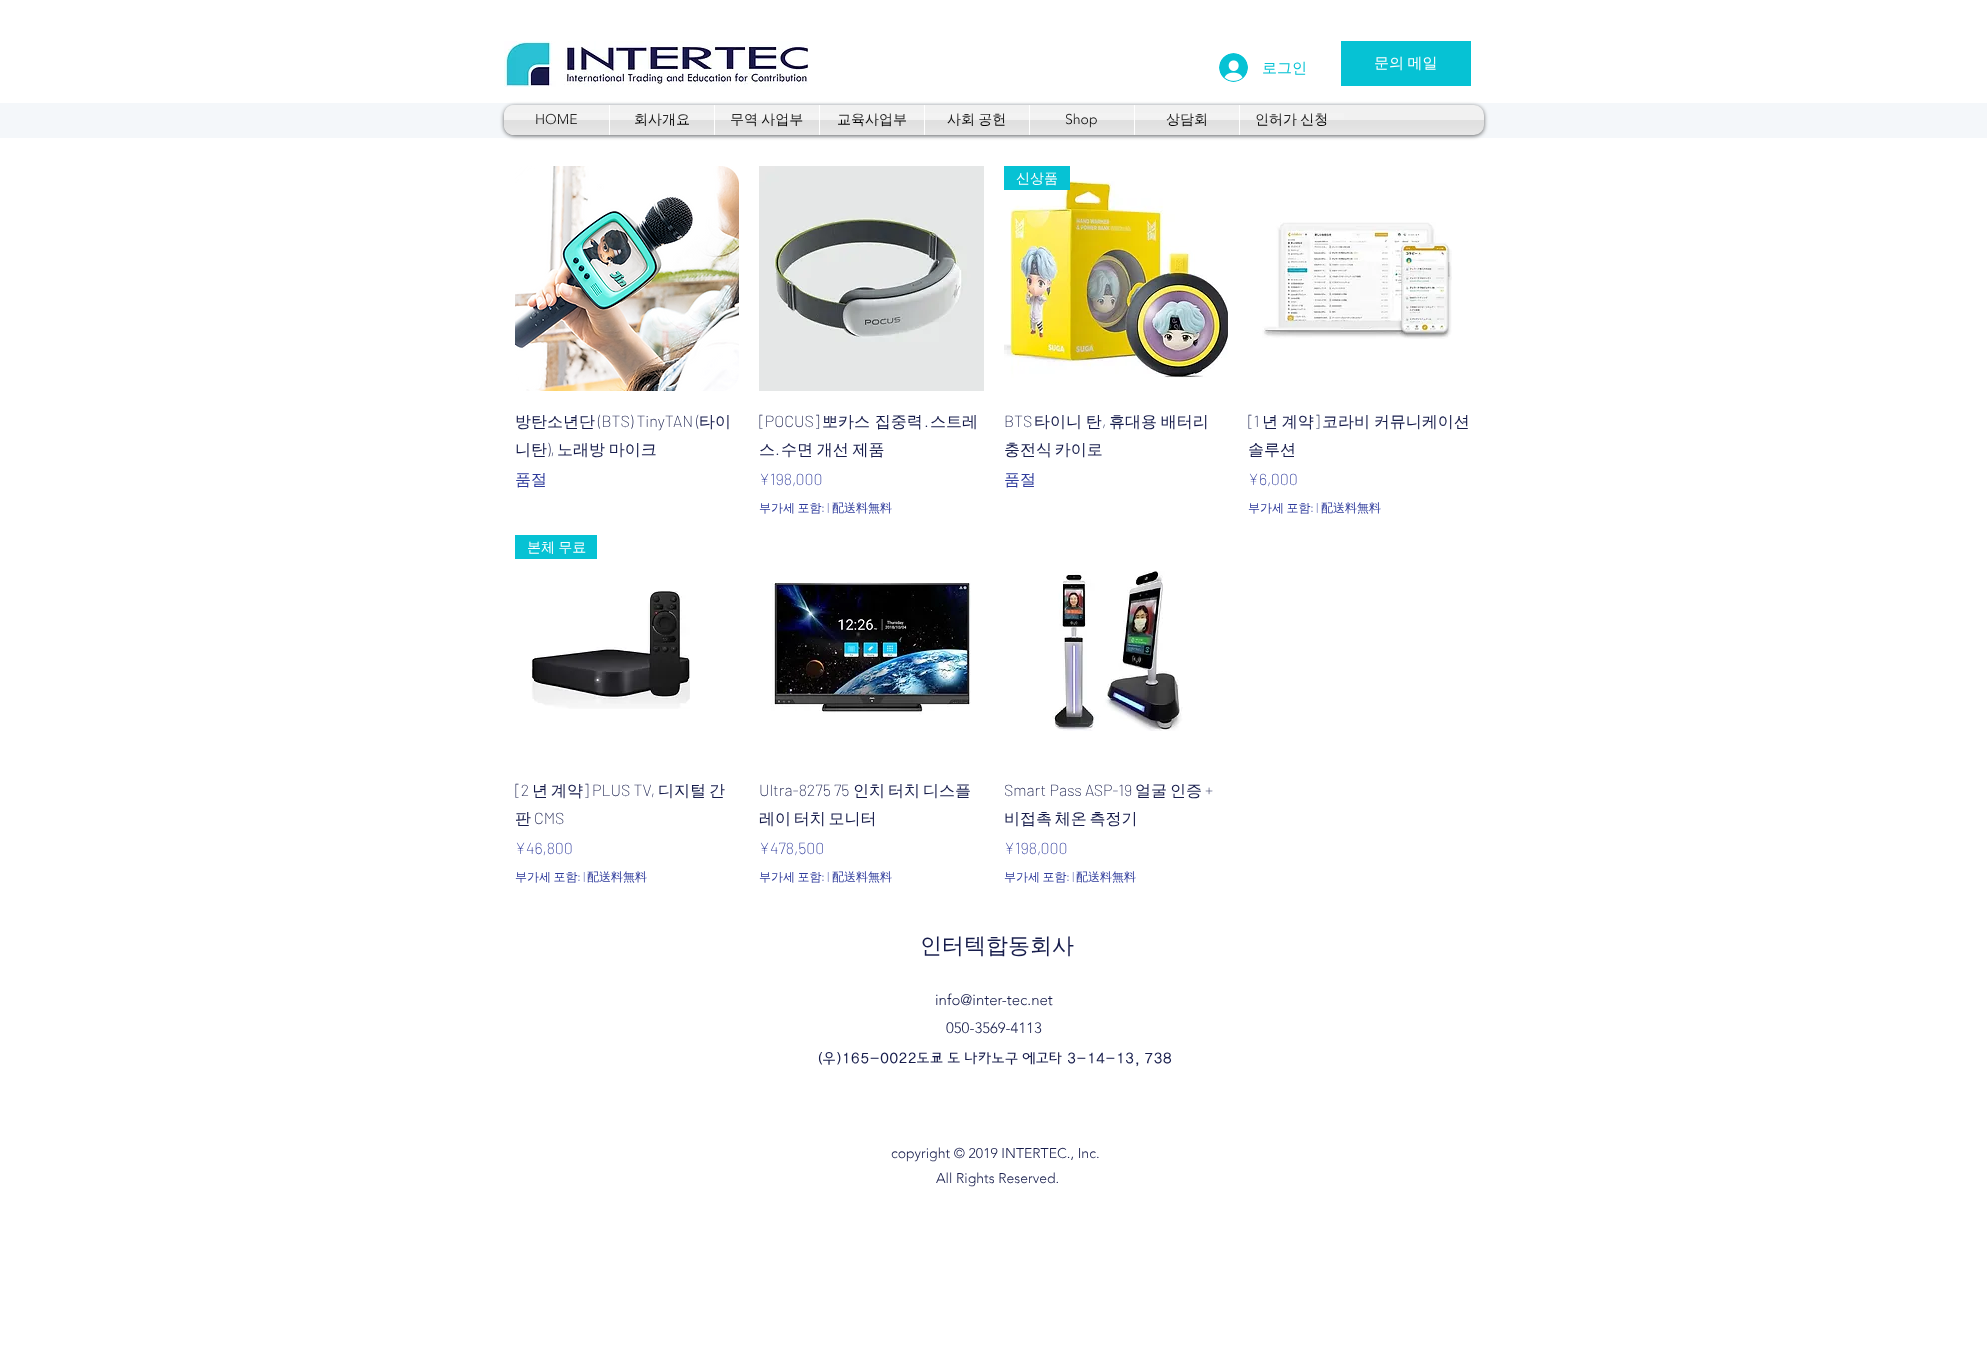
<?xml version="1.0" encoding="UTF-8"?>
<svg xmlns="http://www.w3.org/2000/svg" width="1987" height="1347">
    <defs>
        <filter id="blur1" x="-50%" y="-200%" width="200%" height="500%"><feGaussianBlur stdDeviation="2"/></filter>
    </defs>
    <rect width="100%" height="100%" fill="#FFFFFF"/>
    <image x="504" y="41" width="304" height="46" href="img_01.png"/>
    <image x="1219" y="53" width="29" height="29" href="img_02.png"/>
    <text x="1262" y="73" font-family="WenQuanYi Zen Hei" font-size="15" font-weight="500" fill="#06C2D4">로그인</text>
    <rect x="1341" y="41" width="130" height="45" fill="#06C2D4"/>
    <text x="1374" y="68" word-spacing="-1" font-family="WenQuanYi Zen Hei" font-size="15" font-weight="500" fill="#FFFFFF">문의 메일</text>
    <rect x="0" y="103" width="1987" height="35" fill="#F4F7FA"/>
    <rect x="504" y="106" width="980" height="30" rx="10" fill="#000000" fill-opacity="0.6" filter="url(#blur1)"/>
    <rect x="504" y="105" width="980" height="30" rx="10" fill="#F1F1F1"/>
    <image x="504" y="120" width="980" height="15" href="img_03.png"/>
    <path d="M 514 105 H 609 V 135 H 514 C 508.5 135 504 130.5 504 125 V 115 C 504 109.5 508.5 105 514 105 Z" fill="#F1F1F1"/>
    <text x="535" y="124" font-family="'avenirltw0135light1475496'" font-size="14" font-weight="300" fill="#000000">HOME</text>
    <image x="504" y="113" width="105" height="22" href="img_04.png"/>
    <rect x="610" y="120" width="104" height="15" fill="#F1F1F1"/>
    <rect x="609" y="105" width="1" height="30" fill="#FFFFFF"/>
    <text x="634" y="124" font-family="WenQuanYi Zen Hei" font-size="14" font-weight="500" fill="#000000">회사개요</text>
    <image x="610" y="113" width="104" height="22" href="img_05.png"/>
    <rect x="715" y="120" width="104" height="15" fill="#F1F1F1"/>
    <rect x="714" y="105" width="1" height="30" fill="#FFFFFF"/>
    <text x="730" y="124" word-spacing="-1" font-family="WenQuanYi Zen Hei" font-size="14" font-weight="500" fill="#000000">무역 사업부</text>
    <image x="715" y="113" width="104" height="22" href="img_06.png"/>
    <rect x="820" y="120" width="104" height="15" fill="#F1F1F1"/>
    <rect x="819" y="105" width="1" height="30" fill="#FFFFFF"/>
    <text x="837" y="124" font-family="WenQuanYi Zen Hei" font-size="14" font-weight="500" fill="#000000">교육사업부</text>
    <image x="820" y="113" width="104" height="22" href="img_07.png"/>
    <rect x="925" y="120" width="104" height="15" fill="#F1F1F1"/>
    <rect x="924" y="105" width="1" height="30" fill="#FFFFFF"/>
    <text x="947" y="124" word-spacing="-1" font-family="WenQuanYi Zen Hei" font-size="14" font-weight="500" fill="#000000">사회 공헌</text>
    <image x="925" y="113" width="104" height="22" href="img_08.png"/>
    <rect x="1030" y="120" width="104" height="15" fill="#F1F1F1"/>
    <rect x="1029" y="105" width="1" height="30" fill="#FFFFFF"/>
    <text x="1065" y="124" font-family="'avenirltw0135light1475496'" font-size="14" font-weight="300" fill="#000000">Shop</text>
    <image x="1030" y="113" width="104" height="22" href="img_09.png"/>
    <rect x="1135" y="120" width="104" height="15" fill="#F1F1F1"/>
    <rect x="1134" y="105" width="1" height="30" fill="#FFFFFF"/>
    <text x="1166" y="124" font-family="WenQuanYi Zen Hei" font-size="14" font-weight="500" fill="#000000">상담회</text>
    <image x="1135" y="113" width="104" height="22" href="img_10.png"/>
    <rect x="1240" y="120" width="104" height="15" fill="#F1F1F1"/>
    <rect x="1239" y="105" width="1" height="30" fill="#FFFFFF"/>
    <text x="1255" y="124" word-spacing="-1" font-family="WenQuanYi Zen Hei" font-size="14" font-weight="500" fill="#000000">인허가 신청</text>
    <image x="1240" y="113" width="104" height="22" href="img_11.png"/>
    <image x="515" y="166" width="224" height="225" href="img_12.png"/>
    <text x="515" y="427" font-family="WenQuanYi Zen Hei" font-size="16" font-weight="500" fill="#161C4B">방탄소년단</text>
    <text x="598" y="427" font-family="Barlow" font-size="16" font-weight="200" fill="#161C4B">(BTS) TinyTAN (</text>
    <text x="699" y="427" font-family="WenQuanYi Zen Hei" font-size="16" font-weight="500" fill="#161C4B">타이</text>
    <text x="515" y="455" font-family="WenQuanYi Zen Hei" font-size="16" font-weight="500" fill="#161C4B">니탄</text>
    <text x="547" y="455" font-family="Barlow" font-size="16" font-weight="200" fill="#161C4B">),</text>
    <text x="557" y="455" word-spacing="-1" font-family="WenQuanYi Zen Hei" font-size="16" font-weight="500" fill="#161C4B">노래방 마이크</text>
    <text x="515" y="485" font-family="WenQuanYi Zen Hei" font-size="16" font-weight="500" fill="#2D3A9B">품절</text>
    <image x="759" y="166" width="225" height="225" href="img_13.png"/>
    <text x="759" y="427" font-family="Barlow" font-size="16" font-weight="200" fill="#161C4B">[POCUS]</text>
    <text x="822" y="427" font-family="WenQuanYi Zen Hei" font-size="16" font-weight="500" fill="#161C4B">뽀카스 집중력</text>
    <text x="926" y="427" font-family="Barlow" font-size="16" font-weight="200" fill="#161C4B">·</text>
    <text x="930" y="427" font-family="WenQuanYi Zen Hei" font-size="16" font-weight="500" fill="#161C4B">스트레</text>
    <text x="759" y="455" font-family="WenQuanYi Zen Hei" font-size="16" font-weight="500" fill="#161C4B">스</text>
    <text x="777" y="455" font-family="Barlow" font-size="16" font-weight="200" fill="#161C4B">·</text>
    <text x="781" y="455" word-spacing="-1" font-family="WenQuanYi Zen Hei" font-size="16" font-weight="500" fill="#161C4B">수면 개선 제품</text>
    <text x="759" y="485" font-family="Barlow" font-size="16" font-weight="200" fill="#2D3A9B">¥198,000</text>
    <text x="759" y="512" word-spacing="-1" font-family="WenQuanYi Zen Hei" font-size="12" font-weight="500" fill="#2D3A9B">부가세 포함</text>
    <text x="821" y="512" font-family="Barlow" font-size="12" font-weight="200" fill="#2D3A9B">: |</text>
    <text x="832" y="512" font-family="WenQuanYi Zen Hei" font-size="12" font-weight="500" fill="#2D3A9B">配送料無料</text>
    <image x="1004" y="181" width="224" height="197" href="img_14.png"/>
    <rect x="1004" y="166" width="66" height="24" fill="#06C2D4"/>
    <text x="1016" y="183" font-family="WenQuanYi Zen Hei" font-size="14" font-weight="500" fill="#FFFFFF">신상품</text>
    <text x="1004" y="427" font-family="Barlow" font-size="16" font-weight="200" fill="#161C4B">BTS</text>
    <text x="1034" y="427" word-spacing="-1" font-family="WenQuanYi Zen Hei" font-size="16" font-weight="500" fill="#161C4B">타이니 탄</text>
    <text x="1102" y="427" font-family="Barlow" font-size="16" font-weight="200" fill="#161C4B">,</text>
    <text x="1109" y="427" word-spacing="-1" font-family="WenQuanYi Zen Hei" font-size="16" font-weight="500" fill="#161C4B">휴대용 배터리</text>
    <text x="1004" y="455" word-spacing="-2" font-family="WenQuanYi Zen Hei" font-size="16" font-weight="500" fill="#161C4B">충전식 카이로</text>
    <text x="1004" y="485" font-family="WenQuanYi Zen Hei" font-size="16" font-weight="500" fill="#2D3A9B">품절</text>
    <image x="1262" y="222" width="190" height="117" href="img_15.png"/>
    <text x="1248" y="427" font-family="Barlow" font-size="16" font-weight="200" fill="#161C4B">[1</text>
    <text x="1262" y="427" word-spacing="-1" font-family="WenQuanYi Zen Hei" font-size="16" font-weight="500" fill="#161C4B">년 계약</text>
    <text x="1314" y="427" font-family="Barlow" font-size="16" font-weight="200" fill="#161C4B">]</text>
    <text x="1322" y="427" word-spacing="-1" font-family="WenQuanYi Zen Hei" font-size="16" font-weight="500" fill="#161C4B">코라비 커뮤니케이션</text>
    <text x="1248" y="455" font-family="WenQuanYi Zen Hei" font-size="16" font-weight="500" fill="#161C4B">솔루션</text>
    <text x="1248" y="485" font-family="Barlow" font-size="16" font-weight="200" fill="#2D3A9B">¥6,000</text>
    <text x="1248" y="512" word-spacing="-1" font-family="WenQuanYi Zen Hei" font-size="12" font-weight="500" fill="#2D3A9B">부가세 포함</text>
    <text x="1310" y="512" font-family="Barlow" font-size="12" font-weight="200" fill="#2D3A9B">: |</text>
    <text x="1321" y="512" font-family="WenQuanYi Zen Hei" font-size="12" font-weight="500" fill="#2D3A9B">配送料無料</text>
    <rect x="515" y="535" width="82" height="24" fill="#06C2D4"/>
    <text x="527" y="552" word-spacing="-1" font-family="WenQuanYi Zen Hei" font-size="14" font-weight="500" fill="#FFFFFF">본체 무료</text>
    <image x="530" y="591" width="160" height="118" href="img_16.png"/>
    <text x="515" y="796" font-family="Barlow" font-size="16" font-weight="200" fill="#161C4B">[2</text>
    <text x="532" y="796" font-family="WenQuanYi Zen Hei" font-size="16" font-weight="500" fill="#161C4B">년</text>
    <text x="551" y="796" font-family="WenQuanYi Zen Hei" font-size="16" font-weight="500" fill="#161C4B">계약</text>
    <text x="583" y="796" font-family="Barlow" font-size="16" font-weight="200" fill="#161C4B">] PLUS TV,</text>
    <text x="658" y="796" font-family="WenQuanYi Zen Hei" font-size="16" font-weight="500" fill="#161C4B">디지털</text>
    <text x="709" y="796" font-family="WenQuanYi Zen Hei" font-size="16" font-weight="500" fill="#161C4B">간</text>
    <text x="515" y="824" font-family="WenQuanYi Zen Hei" font-size="16" font-weight="500" fill="#161C4B">판</text>
    <text x="534" y="824" font-family="Barlow" font-size="16" font-weight="200" fill="#161C4B">CMS</text>
    <text x="515" y="854" font-family="Barlow" font-size="16" font-weight="200" fill="#2D3A9B">¥46,800</text>
    <text x="515" y="881" word-spacing="-1" font-family="WenQuanYi Zen Hei" font-size="12" font-weight="500" fill="#2D3A9B">부가세 포함</text>
    <text x="577" y="881" font-family="Barlow" font-size="12" font-weight="200" fill="#2D3A9B">: |</text>
    <text x="587" y="881" font-family="WenQuanYi Zen Hei" font-size="12" font-weight="500" fill="#2D3A9B">配送料無料</text>
    <image x="771" y="582" width="200" height="133" href="img_17.png"/>
    <text x="759" y="796" font-family="Barlow" font-size="16" font-weight="200" fill="#161C4B">Ultra-8275 75</text>
    <text x="853" y="796" font-family="WenQuanYi Zen Hei" font-size="16" font-weight="500" fill="#161C4B">인치</text>
    <text x="888" y="796" font-family="WenQuanYi Zen Hei" font-size="16" font-weight="500" fill="#161C4B">터치</text>
    <text x="923" y="796" font-family="WenQuanYi Zen Hei" font-size="16" font-weight="500" fill="#161C4B">디스플</text>
    <text x="759" y="824" word-spacing="-2" font-family="WenQuanYi Zen Hei" font-size="16" font-weight="500" fill="#161C4B">레이 터치 모니터</text>
    <text x="759" y="854" font-family="Barlow" font-size="16" font-weight="200" fill="#2D3A9B">¥478,500</text>
    <text x="759" y="881" word-spacing="-1" font-family="WenQuanYi Zen Hei" font-size="12" font-weight="500" fill="#2D3A9B">부가세 포함</text>
    <text x="821" y="881" font-family="Barlow" font-size="12" font-weight="200" fill="#2D3A9B">: |</text>
    <text x="832" y="881" font-family="WenQuanYi Zen Hei" font-size="12" font-weight="500" fill="#2D3A9B">配送料無料</text>
    <image x="1052" y="571" width="131" height="160" href="img_18.png"/>
    <text x="1004" y="796" font-family="Barlow" font-size="16" font-weight="200" fill="#161C4B">Smart Pass ASP-19</text>
    <text x="1135" y="796" font-family="WenQuanYi Zen Hei" font-size="16" font-weight="500" fill="#161C4B">얼굴</text>
    <text x="1170" y="796" font-family="WenQuanYi Zen Hei" font-size="16" font-weight="500" fill="#161C4B">인증</text>
    <text x="1205" y="796" font-family="Barlow" font-size="16" font-weight="200" fill="#161C4B">+</text>
    <text x="1004" y="824" word-spacing="-2" font-family="WenQuanYi Zen Hei" font-size="16" font-weight="500" fill="#161C4B">비접촉 체온 측정기</text>
    <text x="1004" y="854" font-family="Barlow" font-size="16" font-weight="200" fill="#2D3A9B">¥198,000</text>
    <text x="1004" y="881" word-spacing="-1" font-family="WenQuanYi Zen Hei" font-size="12" font-weight="500" fill="#2D3A9B">부가세 포함</text>
    <text x="1066" y="881" font-family="Barlow" font-size="12" font-weight="200" fill="#2D3A9B">: |</text>
    <text x="1076" y="881" font-family="WenQuanYi Zen Hei" font-size="12" font-weight="500" fill="#2D3A9B">配送料無料</text>
    <text x="920" y="953" font-family="WenQuanYi Zen Hei" font-size="22" font-weight="500" fill="#161C4B">인터텍합동회사</text>
    <text x="935" y="1005" font-family="'avenirltw0135light1475496'" font-size="15" font-weight="300" fill="#161C4B">info@inter-tec.net</text>
    <text x="946" y="1033" font-family="'avenirltw0135light1475496'" font-size="15" font-weight="300" fill="#161C4B">050-3569-4113</text>
    <text x="818" y="1064" font-family="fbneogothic" font-size="15" fill="#161C4B">(우)165-0022도쿄 도 나카노구 에고타 3-14-13, 738</text>
    <text x="891" y="1158" font-family="'avenirltw0135light1475496'" font-size="14" font-weight="300" fill="#161C4B">copyright © 2019 INTERTEC., Inc.</text>
    <text x="936" y="1183" font-family="'avenirltw0135light1475496'" font-size="14" font-weight="300" fill="#161C4B">All Rights Reserved.</text>
</svg>
